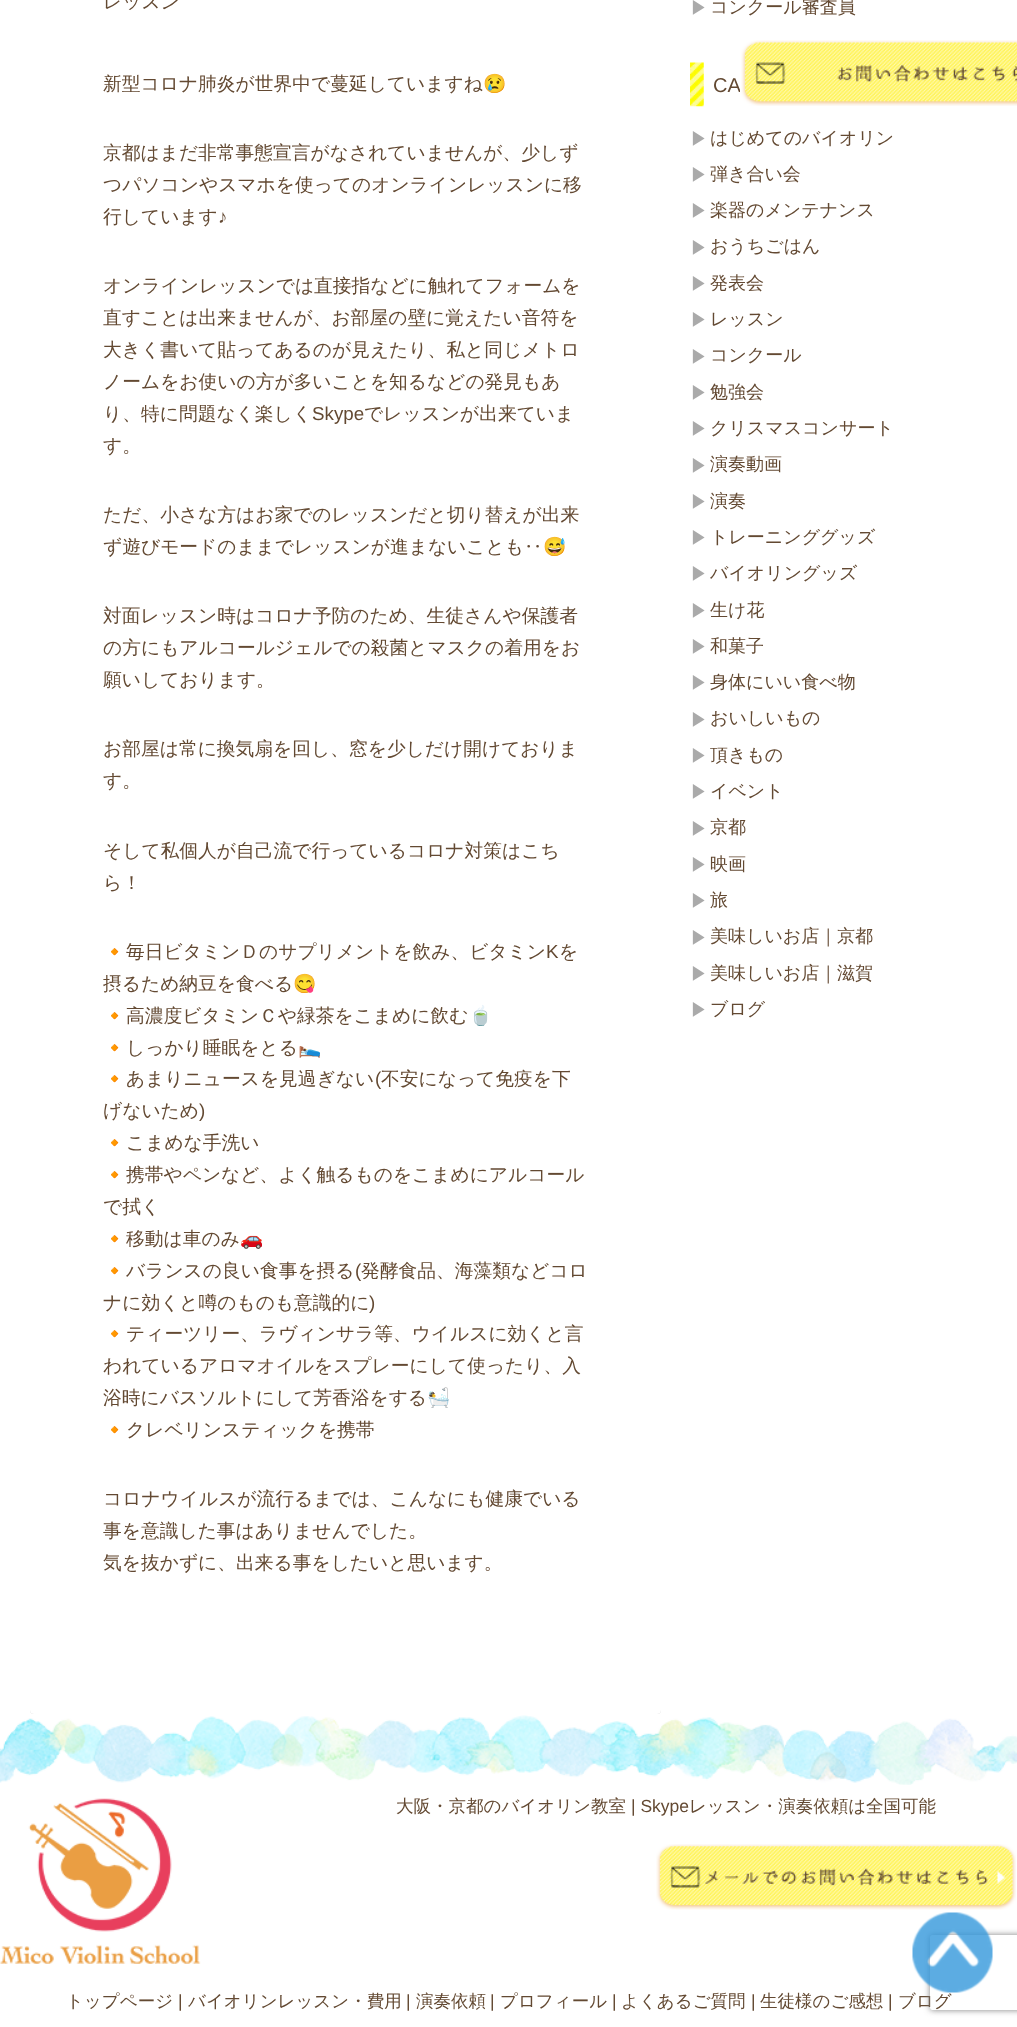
<?xml version="1.0" encoding="UTF-8"?>
<svg xmlns="http://www.w3.org/2000/svg" width="1017" height="2027">
    <defs>
        <filter id="blur1" x="-50%" y="-200%" width="200%" height="500%"><feGaussianBlur stdDeviation="0.5"/></filter>
        <clipPath id="clip1"><path d="M 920 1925 H 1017 V 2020 H 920 Z M 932.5 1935 H 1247.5 C 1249 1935 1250 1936 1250 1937.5 V 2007.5 C 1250 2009 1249 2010 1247.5 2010 H 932.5 C 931 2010 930 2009 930 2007.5 V 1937.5 C 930 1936 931 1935 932.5 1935 Z" clip-rule="evenodd"/></clipPath>
        <filter id="blur2" x="-50%" y="-200%" width="200%" height="500%"><feGaussianBlur stdDeviation="3"/></filter>
    </defs>
    <rect width="100%" height="100%" fill="#FFFFFF"/>
    <rect x="30" y="-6" width="631" height="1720" rx="4" fill="#000000" fill-opacity="0.2" filter="url(#blur1)"/>
    <rect x="30" y="-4" width="631" height="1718" rx="4" fill="#FFFFFF"/>
    <text x="103" y="8" font-family="WenQuanYi Zen Hei" font-size="18.75" font-weight="500" fill="#634932">レッスン</text>
    <text x="103" y="90" font-family="WenQuanYi Zen Hei" font-size="18.75" font-weight="500" fill="#634932">新型コロナ肺炎が世界中で蔓延していますね</text>
    <text x="483" y="90" font-family="Noto Color Emoji" font-size="18.75" fill="#634932">😢</text>
    <text font-family="WenQuanYi Zen Hei" font-size="18.75" font-weight="500" fill="#634932">
        <tspan x="103" y="159">京都はまだ非常事態宣言がなされていませんが、少しず</tspan>
        <tspan x="103" y="191">つパソコンやスマホを使ってのオンラインレッスンに移</tspan>
        <tspan x="103" y="223">行しています</tspan>
    </text>
    <text x="218" y="223" font-family="Liberation Sans" font-size="18.75" fill="#634932">♪</text>
    <text font-family="WenQuanYi Zen Hei" font-size="18.75" font-weight="500" fill="#634932">
        <tspan x="103" y="292">オンラインレッスンでは直接指などに触れてフォームを</tspan>
        <tspan x="103" y="324">直すことは出来ませんが、お部屋の壁に覚えたい音符を</tspan>
        <tspan x="103" y="356">大きく書いて貼ってあるのが見えたり、私と同じメトロ</tspan>
        <tspan x="103" y="388">ノームをお使いの方が多いことを知るなどの発見もあ</tspan>
        <tspan x="103" y="420">り、特に問題なく楽しく</tspan>
    </text>
    <text x="312" y="420" font-family="Liberation Sans" font-size="18.75" fill="#634932">Skype</text>
    <text x="364" y="420" font-family="WenQuanYi Zen Hei" font-size="18.75" font-weight="500" fill="#634932">でレッスンが出来ていま</text>
    <text x="103" y="452" font-family="WenQuanYi Zen Hei" font-size="18.75" font-weight="500" fill="#634932">す。</text>
    <text font-family="WenQuanYi Zen Hei" font-size="18.75" font-weight="500" fill="#634932">
        <tspan x="103" y="521">ただ、小さな方はお家でのレッスンだと切り替えが出来</tspan>
        <tspan x="103" y="553">ず遊びモードのままでレッスンが進まないことも‥</tspan>
    </text>
    <text x="543" y="553" font-family="Noto Color Emoji" font-size="18.75" fill="#634932">😅</text>
    <text font-family="WenQuanYi Zen Hei" font-size="18.75" font-weight="500" fill="#634932">
        <tspan x="103" y="622">対面レッスン時はコロナ予防のため、生徒さんや保護者</tspan>
        <tspan x="103" y="654">の方にもアルコールジェルでの殺菌とマスクの着用をお</tspan>
        <tspan x="103" y="686">願いしております。</tspan>
    </text>
    <text font-family="WenQuanYi Zen Hei" font-size="18.75" font-weight="500" fill="#634932">
        <tspan x="103" y="755">お部屋は常に換気扇を回し、窓を少しだけ開けておりま</tspan>
        <tspan x="103" y="787">す。</tspan>
    </text>
    <text font-family="WenQuanYi Zen Hei" font-size="18.75" font-weight="500" fill="#634932">
        <tspan x="103" y="857">そして私個人が自己流で行っているコロナ対策はこち</tspan>
        <tspan x="103" y="889">ら！</tspan>
    </text>
    <text x="103" y="958" font-family="Noto Color Emoji" font-size="18.75" fill="#634932">🔸</text>
    <text x="126" y="958" font-family="WenQuanYi Zen Hei" font-size="18.75" font-weight="500" fill="#634932">毎日ビタミンＤのサプリメントを飲み、ビタミン</text>
    <text x="546" y="958" font-family="Liberation Sans" font-size="18.75" fill="#634932">K</text>
    <text x="559" y="958" font-family="WenQuanYi Zen Hei" font-size="18.75" font-weight="500" fill="#634932">を</text>
    <text x="103" y="990" font-family="WenQuanYi Zen Hei" font-size="18.75" font-weight="500" fill="#634932">摂るため納豆を食べる</text>
    <text x="293" y="990" font-family="Noto Color Emoji" font-size="18.75" fill="#634932">😋</text>
    <text x="103" y="1022" font-family="Noto Color Emoji" font-size="18.75" fill="#634932">🔸</text>
    <text x="126" y="1022" font-family="WenQuanYi Zen Hei" font-size="18.75" font-weight="500" fill="#634932">高濃度ビタミンＣや緑茶をこまめに飲む</text>
    <text x="469" y="1022" font-family="Noto Color Emoji" font-size="18.75" fill="#634932">🍵</text>
    <text x="103" y="1054" font-family="Noto Color Emoji" font-size="18.75" fill="#634932">🔸</text>
    <text x="126" y="1054" font-family="WenQuanYi Zen Hei" font-size="18.75" font-weight="500" fill="#634932">しっかり睡眠をとる</text>
    <text x="298" y="1054" font-family="Noto Color Emoji" font-size="18.75" fill="#634932">🛌</text>
    <text x="103" y="1085" font-family="Noto Color Emoji" font-size="18.75" fill="#634932">🔸</text>
    <text x="126" y="1085" font-family="WenQuanYi Zen Hei" font-size="18.75" font-weight="500" fill="#634932">あまりニュースを見過ぎない</text>
    <text x="375" y="1085" font-family="Liberation Sans" font-size="18.75" fill="#634932">(</text>
    <text x="381" y="1085" font-family="WenQuanYi Zen Hei" font-size="18.75" font-weight="500" fill="#634932">不安になって免疫を下</text>
    <text x="103" y="1117" font-family="WenQuanYi Zen Hei" font-size="18.75" font-weight="500" fill="#634932">げないため</text>
    <text x="199" y="1117" font-family="Liberation Sans" font-size="18.75" fill="#634932">)</text>
    <text x="103" y="1149" font-family="Noto Color Emoji" font-size="18.75" fill="#634932">🔸</text>
    <text x="126" y="1149" font-family="WenQuanYi Zen Hei" font-size="18.75" font-weight="500" fill="#634932">こまめな手洗い</text>
    <text x="103" y="1181" font-family="Noto Color Emoji" font-size="18.75" fill="#634932">🔸</text>
    <text x="126" y="1181" font-family="WenQuanYi Zen Hei" font-size="18.75" font-weight="500" fill="#634932">携帯やペンなど、よく触るものをこまめにアルコール</text>
    <text x="103" y="1213" font-family="WenQuanYi Zen Hei" font-size="18.75" font-weight="500" fill="#634932">で拭く</text>
    <text x="103" y="1245" font-family="Noto Color Emoji" font-size="18.75" fill="#634932">🔸</text>
    <text x="126" y="1245" font-family="WenQuanYi Zen Hei" font-size="18.75" font-weight="500" fill="#634932">移動は車のみ</text>
    <text x="240" y="1245" font-family="Noto Color Emoji" font-size="18.75" fill="#634932">🚗</text>
    <text x="103" y="1277" font-family="Noto Color Emoji" font-size="18.75" fill="#634932">🔸</text>
    <text x="126" y="1277" font-family="WenQuanYi Zen Hei" font-size="18.75" font-weight="500" fill="#634932">バランスの良い食事を摂る</text>
    <text x="355" y="1277" font-family="Liberation Sans" font-size="18.75" fill="#634932">(</text>
    <text x="361" y="1277" font-family="WenQuanYi Zen Hei" font-size="18.75" font-weight="500" fill="#634932">発酵食品、海藻類などコロ</text>
    <text x="103" y="1309" font-family="WenQuanYi Zen Hei" font-size="18.75" font-weight="500" fill="#634932">ナに効くと噂のものも意識的に</text>
    <text x="369" y="1309" font-family="Liberation Sans" font-size="18.75" fill="#634932">)</text>
    <text x="103" y="1340" font-family="Noto Color Emoji" font-size="18.75" fill="#634932">🔸</text>
    <text x="126" y="1340" font-family="WenQuanYi Zen Hei" font-size="18.75" font-weight="500" fill="#634932">ティーツリー、ラヴィンサラ等、ウイルスに効くと言</text>
    <text font-family="WenQuanYi Zen Hei" font-size="18.75" font-weight="500" fill="#634932">
        <tspan x="103" y="1372">われているアロマオイルをスプレーにして使ったり、入</tspan>
        <tspan x="103" y="1404">浴時にバスソルトにして芳香浴をする</tspan>
    </text>
    <text x="427" y="1404" font-family="Noto Color Emoji" font-size="18.75" fill="#634932">🛀</text>
    <text x="103" y="1436" font-family="Noto Color Emoji" font-size="18.75" fill="#634932">🔸</text>
    <text x="126" y="1436" font-family="WenQuanYi Zen Hei" font-size="18.75" font-weight="500" fill="#634932">クレベリンスティックを携帯</text>
    <text font-family="WenQuanYi Zen Hei" font-size="18.75" font-weight="500" fill="#634932">
        <tspan x="103" y="1505">コロナウイルスが流行るまでは、こんなにも健康でいる</tspan>
        <tspan x="103" y="1537">事を意識した事はありませんでした。</tspan>
        <tspan x="103" y="1569">気を抜かずに、出来る事をしたいと思います。</tspan>
    </text>
    <text x="690" y="14" font-family="WenQuanYi Zen Hei" font-size="18" font-weight="500" fill="#AAAAAA">▶</text>
    <text x="710" y="13" font-family="WenQuanYi Zen Hei" font-size="18" font-weight="500" fill="#634932">コンクール審査員</text>
    <image x="690" y="62" width="14" height="45" href="img_01.png"/>
    <text x="713" y="92" font-family="Liberation Sans" font-size="20" fill="#634932">CA</text>
    <text x="690" y="145" font-family="WenQuanYi Zen Hei" font-size="18" font-weight="500" fill="#AAAAAA">▶</text>
    <text x="710" y="144" font-family="WenQuanYi Zen Hei" font-size="18" font-weight="500" fill="#634932">はじめてのバイオリン</text>
    <text x="690" y="181" font-family="WenQuanYi Zen Hei" font-size="18" font-weight="500" fill="#AAAAAA">▶</text>
    <text x="710" y="180" font-family="WenQuanYi Zen Hei" font-size="18" font-weight="500" fill="#634932">弾き合い会</text>
    <text x="690" y="217" font-family="WenQuanYi Zen Hei" font-size="18" font-weight="500" fill="#AAAAAA">▶</text>
    <text x="710" y="216" font-family="WenQuanYi Zen Hei" font-size="18" font-weight="500" fill="#634932">楽器のメンテナンス</text>
    <text x="690" y="254" font-family="WenQuanYi Zen Hei" font-size="18" font-weight="500" fill="#AAAAAA">▶</text>
    <text x="710" y="252" font-family="WenQuanYi Zen Hei" font-size="18" font-weight="500" fill="#634932">おうちごはん</text>
    <text x="690" y="290" font-family="WenQuanYi Zen Hei" font-size="18" font-weight="500" fill="#AAAAAA">▶</text>
    <text x="710" y="289" font-family="WenQuanYi Zen Hei" font-size="18" font-weight="500" fill="#634932">発表会</text>
    <text x="690" y="326" font-family="WenQuanYi Zen Hei" font-size="18" font-weight="500" fill="#AAAAAA">▶</text>
    <text x="710" y="325" font-family="WenQuanYi Zen Hei" font-size="18" font-weight="500" fill="#634932">レッスン</text>
    <text x="690" y="363" font-family="WenQuanYi Zen Hei" font-size="18" font-weight="500" fill="#AAAAAA">▶</text>
    <text x="710" y="361" font-family="WenQuanYi Zen Hei" font-size="18" font-weight="500" fill="#634932">コンクール</text>
    <text x="690" y="399" font-family="WenQuanYi Zen Hei" font-size="18" font-weight="500" fill="#AAAAAA">▶</text>
    <text x="710" y="398" font-family="WenQuanYi Zen Hei" font-size="18" font-weight="500" fill="#634932">勉強会</text>
    <text x="690" y="435" font-family="WenQuanYi Zen Hei" font-size="18" font-weight="500" fill="#AAAAAA">▶</text>
    <text x="710" y="434" font-family="WenQuanYi Zen Hei" font-size="18" font-weight="500" fill="#634932">クリスマスコンサート</text>
    <text x="690" y="472" font-family="WenQuanYi Zen Hei" font-size="18" font-weight="500" fill="#AAAAAA">▶</text>
    <text x="710" y="470" font-family="WenQuanYi Zen Hei" font-size="18" font-weight="500" fill="#634932">演奏動画</text>
    <text x="690" y="508" font-family="WenQuanYi Zen Hei" font-size="18" font-weight="500" fill="#AAAAAA">▶</text>
    <text x="710" y="507" font-family="WenQuanYi Zen Hei" font-size="18" font-weight="500" fill="#634932">演奏</text>
    <text x="690" y="544" font-family="WenQuanYi Zen Hei" font-size="18" font-weight="500" fill="#AAAAAA">▶</text>
    <text x="710" y="543" font-family="WenQuanYi Zen Hei" font-size="18" font-weight="500" fill="#634932">トレーニンググッズ</text>
    <text x="690" y="580" font-family="WenQuanYi Zen Hei" font-size="18" font-weight="500" fill="#AAAAAA">▶</text>
    <text x="710" y="579" font-family="WenQuanYi Zen Hei" font-size="18" font-weight="500" fill="#634932">バイオリングッズ</text>
    <text x="690" y="617" font-family="WenQuanYi Zen Hei" font-size="18" font-weight="500" fill="#AAAAAA">▶</text>
    <text x="710" y="616" font-family="WenQuanYi Zen Hei" font-size="18" font-weight="500" fill="#634932">生け花</text>
    <text x="690" y="653" font-family="WenQuanYi Zen Hei" font-size="18" font-weight="500" fill="#AAAAAA">▶</text>
    <text x="710" y="652" font-family="WenQuanYi Zen Hei" font-size="18" font-weight="500" fill="#634932">和菓子</text>
    <text x="690" y="689" font-family="WenQuanYi Zen Hei" font-size="18" font-weight="500" fill="#AAAAAA">▶</text>
    <text x="710" y="688" font-family="WenQuanYi Zen Hei" font-size="18" font-weight="500" fill="#634932">身体にいい食べ物</text>
    <text x="690" y="726" font-family="WenQuanYi Zen Hei" font-size="18" font-weight="500" fill="#AAAAAA">▶</text>
    <text x="710" y="724" font-family="WenQuanYi Zen Hei" font-size="18" font-weight="500" fill="#634932">おいしいもの</text>
    <text x="690" y="762" font-family="WenQuanYi Zen Hei" font-size="18" font-weight="500" fill="#AAAAAA">▶</text>
    <text x="710" y="761" font-family="WenQuanYi Zen Hei" font-size="18" font-weight="500" fill="#634932">頂きもの</text>
    <text x="690" y="798" font-family="WenQuanYi Zen Hei" font-size="18" font-weight="500" fill="#AAAAAA">▶</text>
    <text x="710" y="797" font-family="WenQuanYi Zen Hei" font-size="18" font-weight="500" fill="#634932">イベント</text>
    <text x="690" y="835" font-family="WenQuanYi Zen Hei" font-size="18" font-weight="500" fill="#AAAAAA">▶</text>
    <text x="710" y="833" font-family="WenQuanYi Zen Hei" font-size="18" font-weight="500" fill="#634932">京都</text>
    <text x="690" y="871" font-family="WenQuanYi Zen Hei" font-size="18" font-weight="500" fill="#AAAAAA">▶</text>
    <text x="710" y="870" font-family="WenQuanYi Zen Hei" font-size="18" font-weight="500" fill="#634932">映画</text>
    <text x="690" y="907" font-family="WenQuanYi Zen Hei" font-size="18" font-weight="500" fill="#AAAAAA">▶</text>
    <text x="710" y="906" font-family="WenQuanYi Zen Hei" font-size="18" font-weight="500" fill="#634932">旅</text>
    <text x="690" y="944" font-family="WenQuanYi Zen Hei" font-size="18" font-weight="500" fill="#AAAAAA">▶</text>
    <text x="710" y="942" font-family="WenQuanYi Zen Hei" font-size="18" font-weight="500" fill="#634932">美味しいお店｜京都</text>
    <text x="690" y="980" font-family="WenQuanYi Zen Hei" font-size="18" font-weight="500" fill="#AAAAAA">▶</text>
    <text x="710" y="979" font-family="WenQuanYi Zen Hei" font-size="18" font-weight="500" fill="#634932">美味しいお店｜滋賀</text>
    <text x="690" y="1016" font-family="WenQuanYi Zen Hei" font-size="18" font-weight="500" fill="#AAAAAA">▶</text>
    <text x="710" y="1015" font-family="WenQuanYi Zen Hei" font-size="18" font-weight="500" fill="#634932">ブログ</text>
    <image x="740" y="40" width="277" height="66" href="img_02.png"/>
    <image x="0" y="1715" width="1017" height="70" href="img_03.png"/>
    <image x="0" y="1798" width="201" height="166" href="img_04.png"/>
    <text x="396" y="1812" font-family="WenQuanYi Zen Hei" font-size="17.5" font-weight="500" fill="#634932">大阪・京都のバイオリン教室</text>
    <text x="631" y="1812" font-family="Liberation Sans" font-size="17.5" fill="#634932">| Skype</text>
    <text x="689" y="1812" font-family="WenQuanYi Zen Hei" font-size="17.5" font-weight="500" fill="#634932">レッスン・演奏依頼は全国可能</text>
    <image x="656" y="1844" width="360" height="66" href="img_05.png"/>
    <text x="66" y="2007" font-family="WenQuanYi Zen Hei" font-size="17.5" font-weight="500" fill="#634932">トップページ</text>
    <text x="178" y="2007" font-family="Liberation Sans" font-size="17.5" fill="#634932">|</text>
    <text x="188" y="2007" font-family="WenQuanYi Zen Hei" font-size="17.5" font-weight="500" fill="#634932">バイオリンレッスン・費用</text>
    <text x="406" y="2007" font-family="Liberation Sans" font-size="17.5" fill="#634932">|</text>
    <text x="416" y="2007" font-family="WenQuanYi Zen Hei" font-size="17.5" font-weight="500" fill="#634932">演奏依頼</text>
    <text x="490" y="2007" font-family="Liberation Sans" font-size="17.5" fill="#634932">|</text>
    <text x="500" y="2007" font-family="WenQuanYi Zen Hei" font-size="17.5" font-weight="500" fill="#634932">プロフィール</text>
    <text x="612" y="2007" font-family="Liberation Sans" font-size="17.5" fill="#634932">|</text>
    <text x="621" y="2007" font-family="WenQuanYi Zen Hei" font-size="17.5" font-weight="500" fill="#634932">よくあるご質問</text>
    <text x="751" y="2007" font-family="Liberation Sans" font-size="17.5" fill="#634932">|</text>
    <text x="760" y="2007" font-family="WenQuanYi Zen Hei" font-size="17.5" font-weight="500" fill="#634932">生徒様のご感想</text>
    <text x="888" y="2007" font-family="Liberation Sans" font-size="17.5" fill="#634932">|</text>
    <text x="898" y="2007" font-family="WenQuanYi Zen Hei" font-size="17.5" font-weight="500" fill="#634932">ブログ</text>
    <g clip-path="url(#clip1)">
        <rect x="930" y="1935" width="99" height="75" rx="2.5" fill="#808080" filter="url(#blur2)"/>
    </g>
    <image x="912" y="1912" width="81" height="81" href="img_06.png"/>
</svg>
